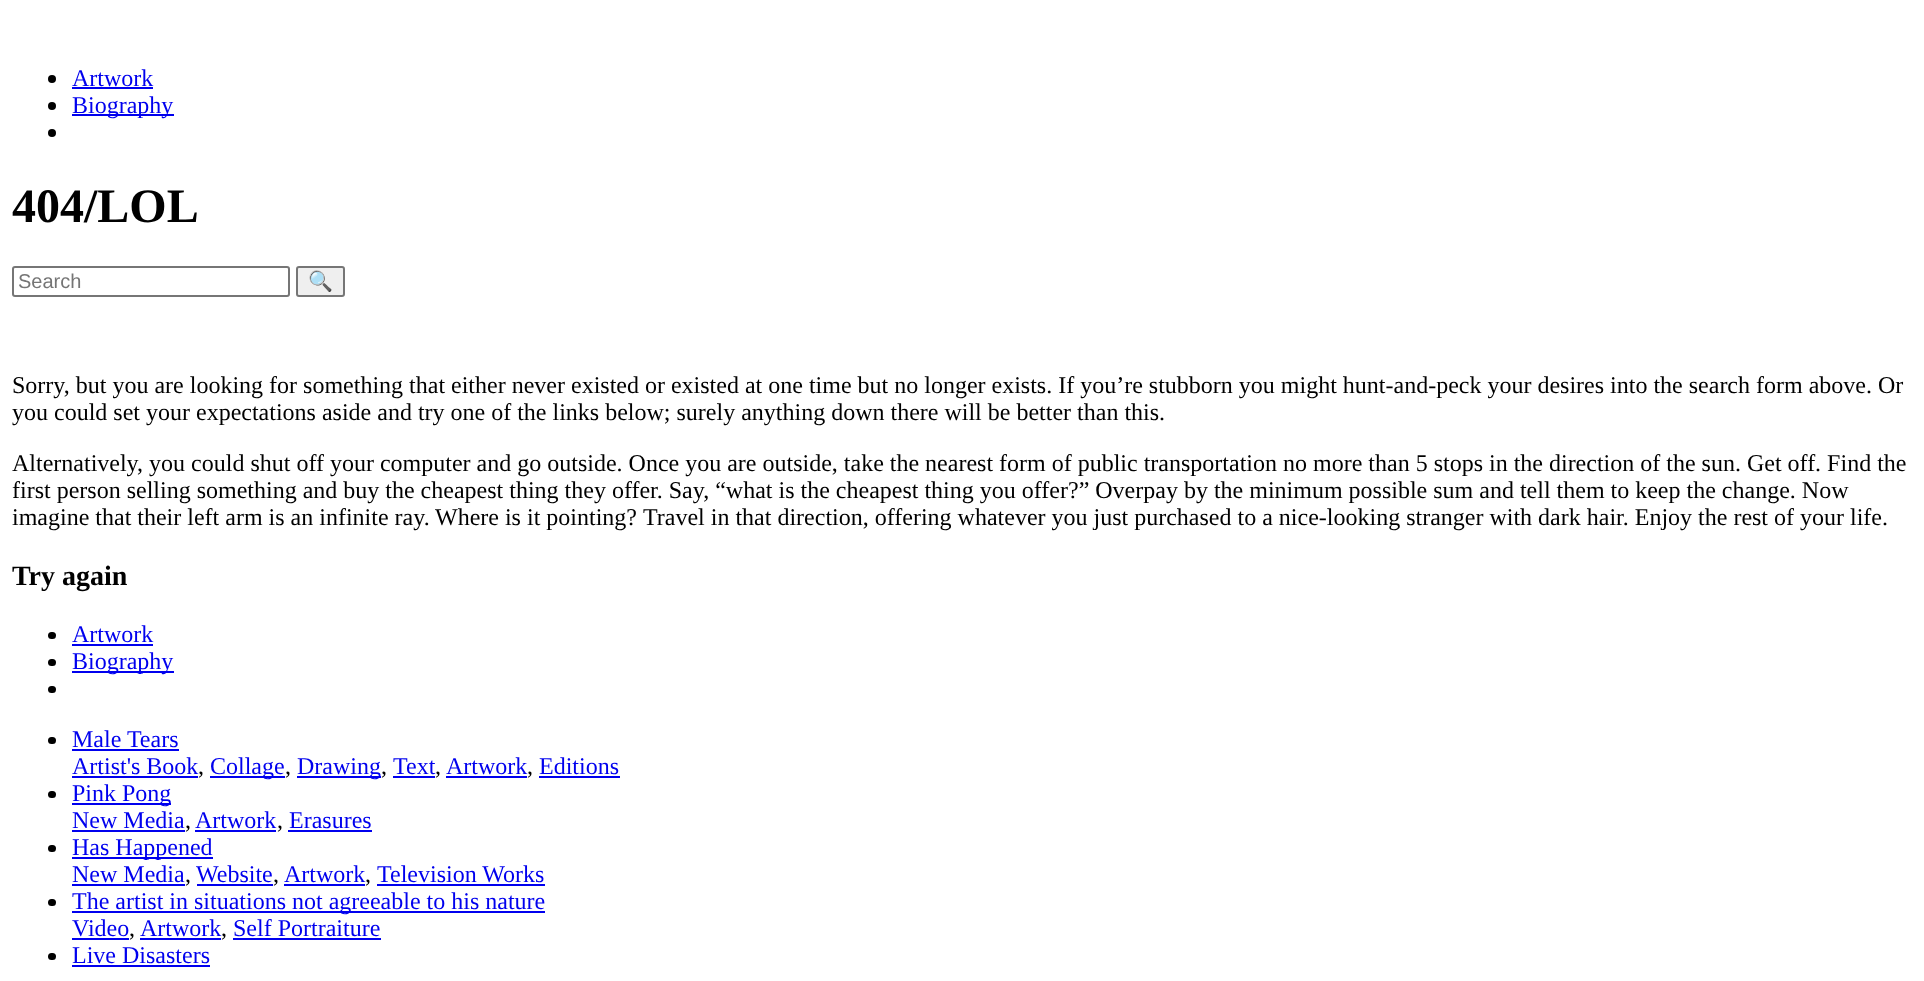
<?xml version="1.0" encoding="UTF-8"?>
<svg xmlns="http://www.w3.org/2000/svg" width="1924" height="981">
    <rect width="100%" height="100%" fill="#FFFFFF"/>
    <circle cx="52" cy="79" r="4" fill="#000000"/>
    <text x="72" y="86" font-family="Liberation Serif" font-size="24" fill="#0000EE">Artwork</text>
    <rect x="72" y="87" width="81" height="2" fill="#0000EE"/>
    <circle cx="52" cy="106" r="4" fill="#000000"/>
    <rect x="72" y="114" width="102" height="2" fill="#0000EE"/>
    <text x="72" y="113" font-family="Liberation Serif" font-size="24" fill="#0000EE">Biography</text>
    <circle cx="52" cy="133" r="4" fill="#000000"/>
    <text x="12" y="222" font-family="Liberation Serif" font-size="48" font-weight="700" fill="#000000">404/LOL</text>
    <rect x="13" y="267" width="276" height="29" rx="2" fill="none" stroke="#767676" stroke-width="2"/>
    <text x="18" y="288" font-family="Liberation Sans" font-size="20" fill="#757575">Search</text>
    <rect x="297" y="267" width="47" height="29" rx="2" fill="#EFEFEF" stroke="#767676" stroke-width="2"/>
    <text x="308" y="288" font-family="Noto Color Emoji" font-size="20" fill="#000000">🔍</text>
    <text font-family="Liberation Serif" font-size="24" fill="#000000">
        <tspan x="12" y="393">Sorry, but you are looking for something that either never existed or existed at one time but no longer exists. If you’re stubborn you might hunt-and-peck your desires into the search form above. Or</tspan>
        <tspan x="12" y="420">you could set your expectations aside and try one of the links below; surely anything down there will be better than this.</tspan>
    </text>
    <text font-family="Liberation Serif" font-size="24" fill="#000000">
        <tspan x="12" y="471">Alternatively, you could shut off your computer and go outside. Once you are outside, take the nearest form of public transportation no more than 5 stops in the direction of the sun. Get off. Find the</tspan>
        <tspan x="12" y="498">first person selling something and buy the cheapest thing they offer. Say, “what is the cheapest thing you offer?” Overpay by the minimum possible sum and tell them to keep the change. Now</tspan>
        <tspan x="12" y="525">imagine that their left arm is an infinite ray.</tspan>
    </text>
    <text x="435" y="525" font-family="Liberation Serif" font-size="24" fill="#000000">Where is it pointing?</text>
    <text x="643" y="525" font-family="Liberation Serif" font-size="24" fill="#000000">Travel in that direction, offering whatever you just purchased to a nice-looking stranger with dark hair. Enjoy the rest of your life.</text>
    <text x="12" y="585" font-family="Liberation Serif" font-size="28" font-weight="700" fill="#000000">Try again</text>
    <rect x="48" y="632" width="8" height="7" rx="3.5" fill="#000000"/>
    <text x="72" y="642" font-family="Liberation Serif" font-size="24" fill="#0000EE">Artwork</text>
    <rect x="72" y="644" width="81" height="2" fill="#0000EE"/>
    <rect x="48" y="659" width="8" height="7" rx="3.5" fill="#000000"/>
    <rect x="72" y="671" width="102" height="2" fill="#0000EE"/>
    <text x="72" y="669" font-family="Liberation Serif" font-size="24" fill="#0000EE">Biography</text>
    <rect x="48" y="686" width="8" height="7" rx="3.5" fill="#000000"/>
    <rect x="48" y="737" width="8" height="7" rx="3.5" fill="#000000"/>
    <text x="72" y="747" font-family="Liberation Serif" font-size="24" fill="#0000EE">Male Tears</text>
    <rect x="72" y="749" width="107" height="2" fill="#0000EE"/>
    <text x="72" y="774" font-family="Liberation Serif" font-size="24" fill="#0000EE">Artist's Book</text>
    <rect x="72" y="776" width="126" height="2" fill="#0000EE"/>
    <text x="198" y="774" font-family="Liberation Serif" font-size="24" fill="#000000">,</text>
    <rect x="210" y="776" width="75" height="2" fill="#0000EE"/>
    <text x="210" y="774" font-family="Liberation Serif" font-size="24" fill="#0000EE">Collage</text>
    <text x="285" y="774" font-family="Liberation Serif" font-size="24" fill="#000000">,</text>
    <rect x="297" y="776" width="84" height="2" fill="#0000EE"/>
    <text x="297" y="774" font-family="Liberation Serif" font-size="24" fill="#0000EE">Drawing</text>
    <text x="381" y="774" font-family="Liberation Serif" font-size="24" fill="#000000">,</text>
    <text x="393" y="774" font-family="Liberation Serif" font-size="24" fill="#0000EE">Text</text>
    <rect x="393" y="776" width="42" height="2" fill="#0000EE"/>
    <text x="435" y="774" font-family="Liberation Serif" font-size="24" fill="#000000">,</text>
    <text x="446" y="774" font-family="Liberation Serif" font-size="24" fill="#0000EE">Artwork</text>
    <rect x="446" y="776" width="81" height="2" fill="#0000EE"/>
    <text x="527" y="774" font-family="Liberation Serif" font-size="24" fill="#000000">,</text>
    <text x="539" y="774" font-family="Liberation Serif" font-size="24" fill="#0000EE">Editions</text>
    <rect x="539" y="776" width="81" height="2" fill="#0000EE"/>
    <rect x="48" y="791" width="8" height="7" rx="3.5" fill="#000000"/>
    <rect x="72" y="803" width="99" height="2" fill="#0000EE"/>
    <text font-family="Liberation Serif" font-size="24" fill="#0000EE">
        <tspan x="72" y="801">Pink Pong</tspan>
        <tspan x="72" y="828">New Media</tspan>
    </text>
    <rect x="72" y="830" width="113" height="2" fill="#0000EE"/>
    <text x="185" y="828" font-family="Liberation Serif" font-size="24" fill="#000000">,</text>
    <text x="195" y="828" font-family="Liberation Serif" font-size="24" fill="#0000EE">Artwork</text>
    <rect x="195" y="830" width="81" height="2" fill="#0000EE"/>
    <text x="277" y="828" font-family="Liberation Serif" font-size="24" fill="#000000">,</text>
    <text x="289" y="828" font-family="Liberation Serif" font-size="24" fill="#0000EE">Erasures</text>
    <rect x="288" y="830" width="84" height="2" fill="#0000EE"/>
    <rect x="48" y="845" width="8" height="7" rx="3.5" fill="#000000"/>
    <rect x="72" y="857" width="141" height="2" fill="#0000EE"/>
    <text font-family="Liberation Serif" font-size="24" fill="#0000EE">
        <tspan x="72" y="855">Has Happened</tspan>
        <tspan x="72" y="882">New Media</tspan>
    </text>
    <rect x="72" y="884" width="113" height="2" fill="#0000EE"/>
    <text x="185" y="882" font-family="Liberation Serif" font-size="24" fill="#000000">,</text>
    <text x="196" y="882" font-family="Liberation Serif" font-size="24" fill="#0000EE">Website</text>
    <rect x="197" y="884" width="76" height="2" fill="#0000EE"/>
    <text x="273" y="882" font-family="Liberation Serif" font-size="24" fill="#000000">,</text>
    <text x="284" y="882" font-family="Liberation Serif" font-size="24" fill="#0000EE">Artwork</text>
    <rect x="284" y="884" width="81" height="2" fill="#0000EE"/>
    <text x="365" y="882" font-family="Liberation Serif" font-size="24" fill="#000000">,</text>
    <text x="377" y="882" font-family="Liberation Serif" font-size="24" fill="#0000EE">Television Works</text>
    <rect x="377" y="884" width="168" height="2" fill="#0000EE"/>
    <rect x="48" y="899" width="8" height="7" rx="3.5" fill="#000000"/>
    <rect x="72" y="911" width="473" height="2" fill="#0000EE"/>
    <text font-family="Liberation Serif" font-size="24" fill="#0000EE">
        <tspan x="72" y="909">The artist in situations not agreeable to his nature</tspan>
        <tspan x="72" y="936">Video</tspan>
    </text>
    <rect x="72" y="938" width="57" height="2" fill="#0000EE"/>
    <text x="129" y="936" font-family="Liberation Serif" font-size="24" fill="#000000">,</text>
    <text x="140" y="936" font-family="Liberation Serif" font-size="24" fill="#0000EE">Artwork</text>
    <rect x="140" y="938" width="81" height="2" fill="#0000EE"/>
    <text x="221" y="936" font-family="Liberation Serif" font-size="24" fill="#000000">,</text>
    <text x="233" y="936" font-family="Liberation Serif" font-size="24" fill="#0000EE">Self Portraiture</text>
    <rect x="233" y="938" width="148" height="2" fill="#0000EE"/>
    <rect x="48" y="953" width="8" height="7" rx="3.5" fill="#000000"/>
    <text x="72" y="963" font-family="Liberation Serif" font-size="24" fill="#0000EE">Live Disasters</text>
    <rect x="72" y="965" width="138" height="2" fill="#0000EE"/>
</svg>
